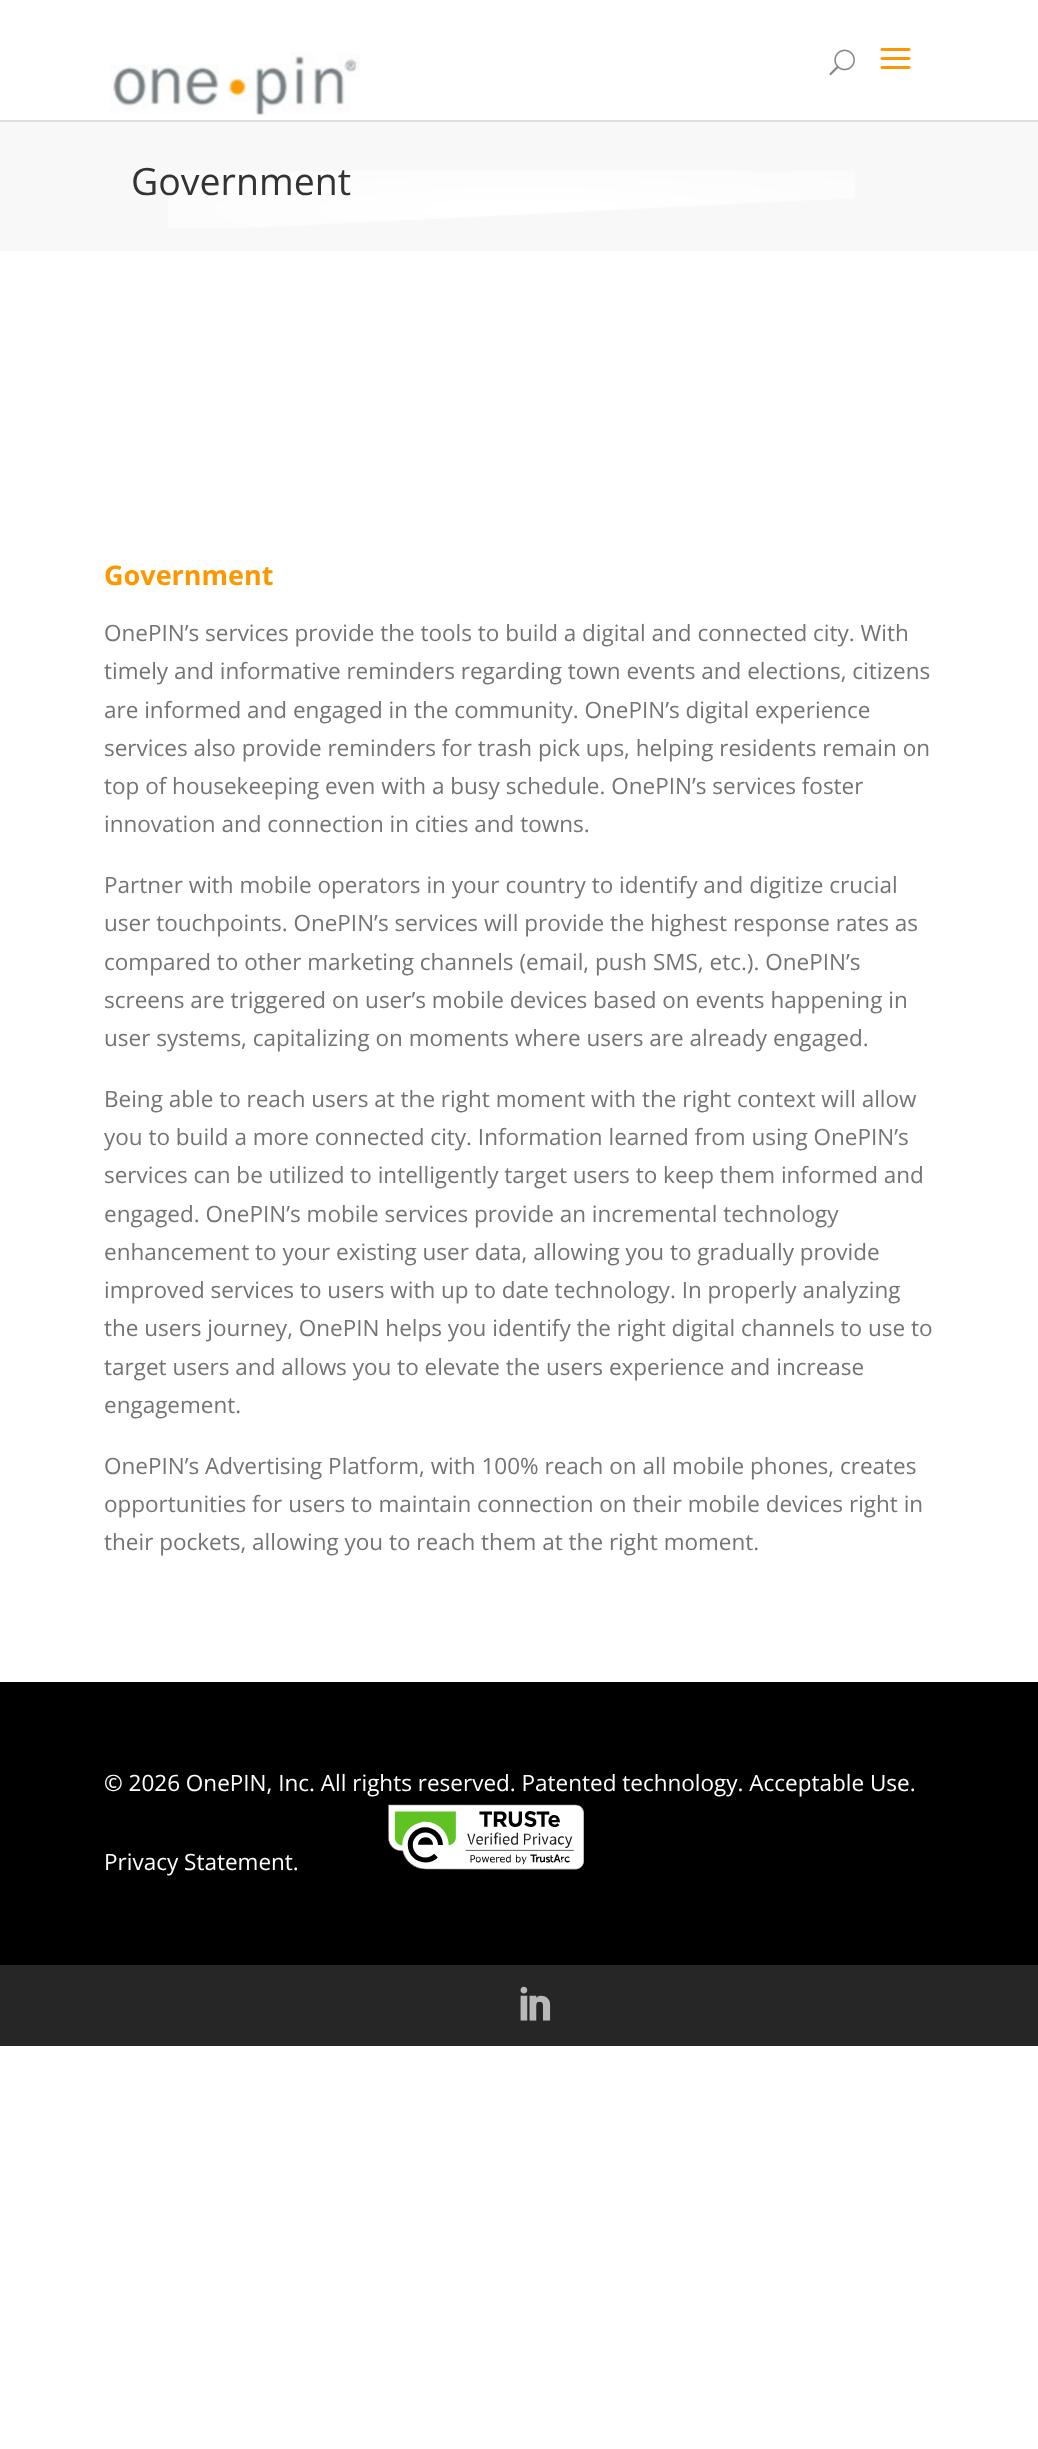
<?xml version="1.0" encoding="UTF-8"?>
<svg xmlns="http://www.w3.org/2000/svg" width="1038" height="2449">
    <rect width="100%" height="100%" fill="#FFFFFF"/>
    <rect x="0" y="120" width="1038" height="2" fill="#DFDFDF"/>
    <image x="110" y="52" width="250" height="65" href="img_01.png"/>
    <image x="829" y="49" width="26" height="27" href="img_02.png"/>
    <image x="880" y="48" width="31" height="21" href="img_03.png"/>
    <rect x="0" y="122" width="1038" height="129" fill="#F8F8F8"/>
    <image x="168" y="171" width="687" height="57" href="img_04.png"/>
    <text x="131" y="195" font-family="Open Sans" font-size="37.5" fill="#333333">Government</text>
    <text x="104" y="585" font-family="Open Sans" font-size="27" font-weight="700" fill="#FD9700">Government</text>
    <text font-family="Open Sans" font-size="22.5" fill="#747474">
        <tspan x="104" y="641">OnePIN’s services provide the tools to build a digital and connected city. With</tspan>
        <tspan x="104" y="679">timely and informative reminders regarding town events and elections, citizens</tspan>
        <tspan x="104" y="718">are informed and engaged in the community. OnePIN’s digital experience</tspan>
        <tspan x="104" y="756">services also provide reminders for trash pick ups, helping residents remain on</tspan>
        <tspan x="104" y="794">top of housekeeping even with a busy schedule. OnePIN’s services foster</tspan>
        <tspan x="104" y="832">innovation and connection in cities and towns.</tspan>
    </text>
    <text font-family="Open Sans" font-size="22.5" fill="#747474">
        <tspan x="104" y="893">Partner with mobile operators in your country to identify and digitize crucial</tspan>
        <tspan x="104" y="931">user touchpoints. OnePIN’s services will provide the highest response rates as</tspan>
        <tspan x="104" y="970">compared to other marketing channels (email, push SMS, etc.). OnePIN’s</tspan>
        <tspan x="104" y="1008">screens are triggered on user’s mobile devices based on events happening in</tspan>
        <tspan x="104" y="1046">user systems, capitalizing on moments where users are already engaged.</tspan>
    </text>
    <text font-family="Open Sans" font-size="22.5" fill="#747474">
        <tspan x="104" y="1107">Being able to reach users at the right moment with the right context will allow</tspan>
        <tspan x="104" y="1145">you to build a more connected city. Information learned from using OnePIN’s</tspan>
        <tspan x="104" y="1183">services can be utilized to intelligently target users to keep them informed and</tspan>
        <tspan x="104" y="1222">engaged. OnePIN’s mobile services provide an incremental technology</tspan>
        <tspan x="104" y="1260">enhancement to your existing user data, allowing you to gradually provide</tspan>
        <tspan x="104" y="1298">improved services to users with up to date technology. In properly analyzing</tspan>
        <tspan x="104" y="1336">the users journey, OnePIN helps you identify the right digital channels to use to</tspan>
        <tspan x="104" y="1375">target users and allows you to elevate the users experience and increase</tspan>
        <tspan x="104" y="1413">engagement.</tspan>
    </text>
    <text font-family="Open Sans" font-size="22.5" fill="#747474">
        <tspan x="104" y="1474">OnePIN’s Advertising Platform, with 100% reach on all mobile phones, creates</tspan>
        <tspan x="104" y="1512">opportunities for users to maintain connection on their mobile devices right in</tspan>
        <tspan x="104" y="1550">their pockets, allowing you to reach them at the right moment.</tspan>
    </text>
    <rect x="0" y="1682" width="1038" height="283" fill="#000000"/>
    <text x="104" y="1791" font-family="Open Sans" font-size="22.5" fill="#FFFFFF">© 2026 OnePIN, Inc. All rights reserved. Patented technology. Acceptable Use.</text>
    <text x="104" y="1870" font-family="Open Sans" font-size="22.5" fill="#FFFFFF">Privacy Statement.</text>
    <image x="388" y="1804" width="196" height="66" href="img_05.png"/>
    <rect x="0" y="1965" width="1038" height="81" fill="#262626"/>
    <image x="520" y="1986" width="31" height="35" href="img_06.png"/>
</svg>
